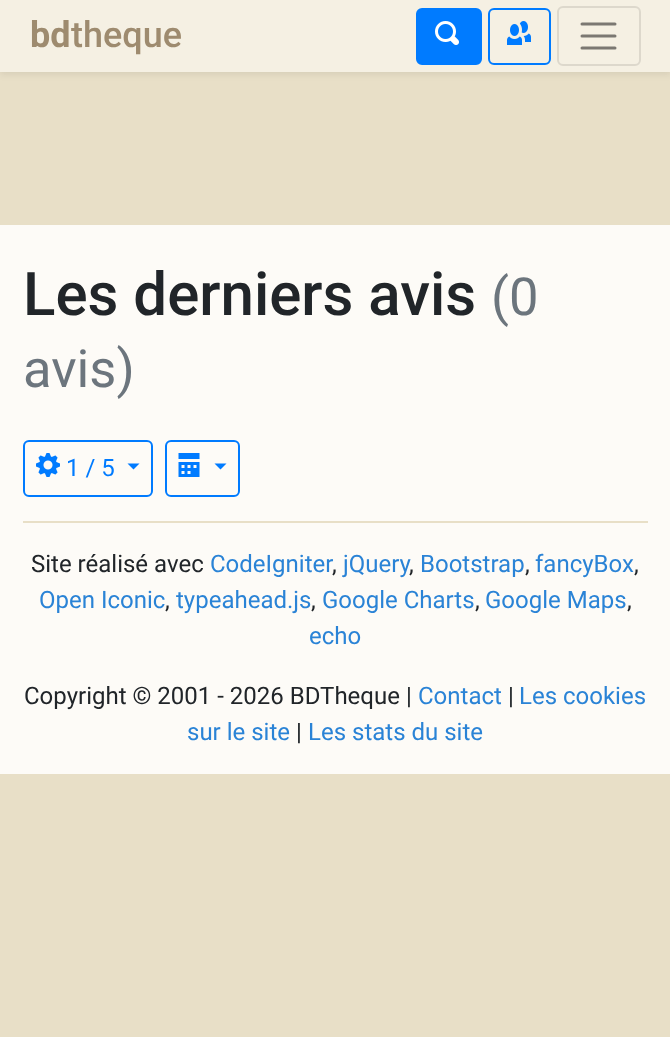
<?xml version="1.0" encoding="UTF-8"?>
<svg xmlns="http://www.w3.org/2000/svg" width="670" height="1037">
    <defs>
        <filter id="blur1" x="-50%" y="-200%" width="200%" height="500%"><feGaussianBlur stdDeviation="3"/></filter>
    </defs>
    <rect width="100%" height="100%" fill="#E8DFC7"/>
    <rect x="0" y="225" width="670" height="549" fill="#FDFBF7"/>
    <rect x="0" y="3" width="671" height="72" fill="#000000" fill-opacity="0.07" filter="url(#blur1)"/>
    <rect x="0" y="0" width="670" height="72" fill="#F5F0E3"/>
    <text x="30" y="47" font-family="Roboto" font-size="36" font-weight="700" fill="#9E8B6F">bd</text>
    <text x="71" y="47" font-family="Roboto" font-size="36" font-weight="500" fill="#9E8B6F">theque</text>
    <rect x="417" y="9" width="64" height="55" rx="5" fill="#007BFF" stroke="#007BFF" stroke-width="2"/>
    <image x="435" y="21" width="24" height="24" href="img_01.png"/>
    <rect x="489" y="9" width="61" height="55" rx="5" fill="none" stroke="#007BFF" stroke-width="2"/>
    <image x="507" y="21" width="24" height="24" href="img_02.png"/>
    <rect x="558" y="7" width="82" height="58" rx="5" fill="none" stroke="#DDD8CC" stroke-width="2"/>
    <path d="M 582 24 H 615 M 582 36 H 615 M 582 48 H 615" fill="none" stroke="#7B7872" stroke-width="3" stroke-linecap="round"/>
    <text x="23" y="315" font-family="Roboto" font-size="60" font-weight="500" fill="#212529">Les derniers avis</text>
    <text x="491" y="315" font-family="Roboto" font-size="52.5" fill="#6C757D">(0</text>
    <text x="23" y="387" font-family="Roboto" font-size="52.5" fill="#6C757D">avis)</text>
    <rect x="24" y="441" width="128" height="55" rx="5" fill="none" stroke="#007BFF" stroke-width="2"/>
    <image x="36" y="453" width="24" height="24" href="img_03.png"/>
    <text x="66" y="476" font-family="Roboto" font-size="24" fill="#007BFF">1 / 5</text>
    <path d="M 127.5 463.5 H 139.5 L 133.5 469.5 Z" fill="#007BFF"/>
    <rect x="166" y="441" width="73" height="55" rx="5" fill="none" stroke="#007BFF" stroke-width="2"/>
    <image x="178" y="453" width="22" height="24" href="img_04.png"/>
    <path d="M 214.5 463.5 H 226.5 L 220.5 469.5 Z" fill="#007BFF"/>
    <rect x="23" y="521" width="625" height="2" fill="#E8DFC7"/>
    <text x="31" y="572" font-family="Roboto" font-size="24" fill="#212529">Site réalisé avec</text>
    <text x="210" y="572" font-family="Roboto" font-size="24" fill="#2A83D6">CodeIgniter</text>
    <text x="343" y="572" font-family="Roboto" font-size="24" fill="#2A83D6">jQuery</text>
    <text x="420" y="572" font-family="Roboto" font-size="24" fill="#2A83D6">Bootstrap</text>
    <text x="535" y="572" font-family="Roboto" font-size="24" fill="#2A83D6">fancyBox</text>
    <text x="332" y="572" font-family="Roboto" font-size="24" fill="#212529">,</text>
    <text x="409" y="572" font-family="Roboto" font-size="24" fill="#212529">,</text>
    <text x="525" y="572" font-family="Roboto" font-size="24" fill="#212529">,</text>
    <text x="634" y="572" font-family="Roboto" font-size="24" fill="#212529">,</text>
    <text x="39" y="608" font-family="Roboto" font-size="24" fill="#2A83D6">Open Iconic</text>
    <text x="165" y="608" font-family="Roboto" font-size="24" fill="#212529">,</text>
    <text x="176" y="608" font-family="Roboto" font-size="24" fill="#2A83D6">typeahead.js</text>
    <text x="311" y="608" font-family="Roboto" font-size="24" fill="#212529">,</text>
    <text x="322" y="608" font-family="Roboto" font-size="24" fill="#2A83D6">Google Charts</text>
    <text x="475" y="608" font-family="Roboto" font-size="24" fill="#212529">,</text>
    <text x="485" y="608" font-family="Roboto" font-size="24" fill="#2A83D6">Google Maps</text>
    <text x="627" y="608" font-family="Roboto" font-size="24" fill="#212529">,</text>
    <text x="309" y="644" font-family="Roboto" font-size="24" fill="#2A83D6">echo</text>
    <text x="24" y="704" font-family="Roboto" font-size="24" fill="#212529">Copyright © 2001 - 2026 BDTheque |</text>
    <text x="418" y="704" font-family="Roboto" font-size="24" fill="#2A83D6">Contact</text>
    <text x="508" y="704" font-family="Roboto" font-size="24" fill="#212529">|</text>
    <text x="519" y="704" font-family="Roboto" font-size="24" fill="#2A83D6">Les cookies</text>
    <text x="187" y="740" font-family="Roboto" font-size="24" fill="#2A83D6">sur le site</text>
    <text x="296" y="740" font-family="Roboto" font-size="24" fill="#212529">|</text>
    <text x="308" y="740" font-family="Roboto" font-size="24" fill="#2A83D6">Les stats du site</text>
</svg>
